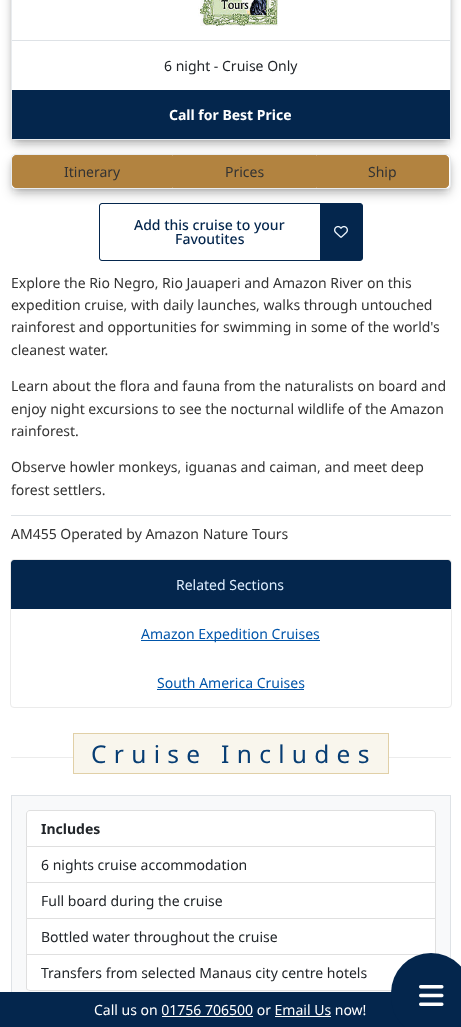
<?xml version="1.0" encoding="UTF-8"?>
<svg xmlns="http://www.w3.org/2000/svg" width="461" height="1027">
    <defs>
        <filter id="blur1" x="-50%" y="-200%" width="200%" height="500%"><feGaussianBlur stdDeviation="3.5"/></filter>
        <filter id="blur2" x="-50%" y="-200%" width="200%" height="500%"><feGaussianBlur stdDeviation="6"/></filter>
    </defs>
    <rect width="100%" height="100%" fill="#FFFFFF"/>
    <rect x="14" y="-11" width="434" height="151" rx="0.5" fill="#000000" fill-opacity="0.3" filter="url(#blur1)"/>
    <rect x="13" y="-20" width="436" height="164" rx="1.5" fill="#212529" fill-opacity="0.25" filter="url(#blur2)"/>
    <rect x="11.5" y="-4.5" width="439" height="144" rx="3.5" fill="#FFFFFF" stroke="#E9ECEF"/>
    <image x="198" y="0" width="80" height="26" href="img_01.png"/>
    <rect x="12" y="40" width="438" height="1" fill="#DEE2E6"/>
    <text x="164" y="71" font-family="Noto Sans" font-size="14" fill="#212529">6 night - Cruise Only</text>
    <rect x="12" y="90" width="438" height="49" fill="#04264D"/>
    <text x="169" y="120" font-family="Noto Sans" font-size="14" font-weight="700" fill="#FFFFFF">Call for Best Price</text>
    <rect x="14" y="160" width="434" height="29" rx="0.5" fill="#000000" fill-opacity="0.3" filter="url(#blur1)"/>
    <rect x="13" y="162" width="436" height="31" rx="1.5" fill="#212529" fill-opacity="0.25" filter="url(#blur2)"/>
    <rect x="11.5" y="154.5" width="439" height="34" rx="3.5" fill="#FFFFFF" stroke="#E9ECEF"/>
    <path d="M 16 155.5 H 172.5 V 187.5 H 16 C 14 187.5 12.5 186 12.5 184 V 159 C 12.5 157 14 155.5 16 155.5 Z" fill="#B28340" stroke="#B28340"/>
    <text x="64" y="177" font-family="Noto Sans" font-size="14" fill="#333333">Itinerary</text>
    <rect x="173" y="155" width="143" height="33" fill="#B28340"/>
    <text x="225" y="177" font-family="Noto Sans" font-size="14" fill="#333333">Prices</text>
    <path d="M 316.5 155.5 H 445 C 447 155.5 448.5 157 448.5 159 V 184 C 448.5 186 447 187.5 445 187.5 H 316.5 Z" fill="#B28340" stroke="#B28340"/>
    <text x="368" y="177" font-family="Noto Sans" font-size="14" fill="#333333">Ship</text>
    <rect x="99.5" y="203.5" width="263" height="57" rx="2.5" fill="#04264D" stroke="#04264D"/>
    <path d="M 102 204 H 320 V 260 H 102 C 101 260 100 259 100 258 V 206 C 100 205 101 204 102 204 Z" fill="#FFFFFF"/>
    <text x="134" y="230" font-family="Noto Sans" font-size="14" font-weight="500" fill="#04264D">Add this cruise to your</text>
    <text x="175" y="244" font-family="Noto Sans" font-size="14" font-weight="500" fill="#04264D">Favoutites</text>
    <image x="334" y="225" width="14" height="13" href="img_02.png"/>
    <text font-family="Noto Sans" font-size="14" fill="#333333">
        <tspan x="11" y="288">Explore the Rio Negro, Rio Jauaperi and Amazon River on this</tspan>
        <tspan x="11" y="310">expedition cruise, with daily launches, walks through untouched</tspan>
        <tspan x="11" y="332">rainforest and opportunities for swimming in some of the world's</tspan>
        <tspan x="11" y="355">cleanest water.</tspan>
    </text>
    <text font-family="Noto Sans" font-size="14" fill="#333333">
        <tspan x="11" y="391">Learn about the flora and fauna from the naturalists on board and</tspan>
        <tspan x="11" y="414">enjoy night excursions to see the nocturnal wildlife of the Amazon</tspan>
        <tspan x="11" y="436">rainforest.</tspan>
    </text>
    <text font-family="Noto Sans" font-size="14" fill="#333333">
        <tspan x="11" y="472">Observe howler monkeys, iguanas and caiman, and meet deep</tspan>
        <tspan x="11" y="495">forest settlers.</tspan>
    </text>
    <rect x="11" y="515" width="440" height="1" fill="#DEE2E6"/>
    <text x="11" y="539" font-family="Noto Sans" font-size="14" fill="#333333">AM455 Operated by Amazon Nature Tours</text>
    <rect x="10.5" y="559.5" width="441" height="148" rx="3.5" fill="none" stroke="#EBEBEB"/>
    <path d="M 14 560 H 448 C 449.5 560 451 561.5 451 563 V 609 H 11 V 563 C 11 561.5 12.5 560 14 560 Z" fill="#04264D"/>
    <text x="176" y="590" font-family="Noto Sans" font-size="14" fill="#DEEEFF">Related Sections</text>
    <rect x="141" y="640" width="179" height="1" fill="#0055AA"/>
    <text x="141" y="639" font-family="Noto Sans" font-size="14" fill="#0055AA">Amazon Expedition Cruises</text>
    <text x="157" y="688" font-family="Noto Sans" font-size="14" fill="#0055AA">South America Cruises</text>
    <rect x="157" y="689" width="147" height="1" fill="#0055AA"/>
    <rect x="11" y="757" width="440" height="1" fill="#ECECEC"/>
    <rect x="73.5" y="733.5" width="315" height="40" fill="#F9F6ED" stroke="#E1D0A7"/>
    <text x="91" y="763" font-family="Noto Sans" font-size="24.5" letter-spacing="7.3" fill="#073D73">Cruise Includes</text>
    <rect x="12" y="796" width="438" height="196" fill="#F8F9FA"/>
    <rect x="11.5" y="795.5" width="439" height="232" fill="none" stroke="#DEE2E6"/>
    <path d="M 30 810.5 H 432 C 434 810.5 435.5 812 435.5 814 V 846.5 H 26.5 V 814 C 26.5 812 28 810.5 30 810.5 Z" fill="#FFFFFF" stroke="#DFDFDF"/>
    <text x="41" y="834" font-family="Noto Sans" font-size="14" font-weight="700" fill="#212529">Includes</text>
    <rect x="26" y="847" width="410" height="72" fill="#FFFFFF"/>
    <path d="M 436 847 V 883 L 435 882 V 847 Z" fill="#DFDFDF"/>
    <path d="M 436 883 H 26 L 27 882 H 435 Z" fill="#000000" fill-opacity="0.12"/>
    <path d="M 26 883 V 847 H 27 V 882 Z" fill="#000000" fill-opacity="0.12"/>
    <text x="41" y="870" font-family="Noto Sans" font-size="14" fill="#212529">6 nights cruise accommodation</text>
    <path d="M 436 883 V 919 L 435 918 V 883 Z" fill="#DFDFDF"/>
    <path d="M 436 919 H 26 L 27 918 H 435 Z" fill="#000000" fill-opacity="0.12"/>
    <path d="M 26 919 V 883 H 27 V 918 Z" fill="#000000" fill-opacity="0.12"/>
    <text x="41" y="906" font-family="Noto Sans" font-size="14" fill="#212529">Full board during the cruise</text>
    <rect x="26" y="919" width="409" height="36" fill="#FFFFFF"/>
    <path d="M 436 919 V 955 L 435 954 V 919 Z" fill="#DFDFDF"/>
    <path d="M 436 955 H 26 L 27 954 H 435 Z" fill="#000000" fill-opacity="0.12"/>
    <path d="M 26 955 V 919 H 27 V 954 Z" fill="#000000" fill-opacity="0.12"/>
    <text x="41" y="942" font-family="Noto Sans" font-size="14" fill="#212529">Bottled water throughout the cruise</text>
    <path d="M 26 955 H 436 V 987 C 436 989 434 991 432 991 H 30 C 28 991 26 989 26 987 Z" fill="#FFFFFF"/>
    <path d="M 27 955 H 26 V 987 C 26 988 26 989 27 990 C 28 990 29 991 30 991 H 432 C 433 991 434 990 435 990 C 436 989 436 988 436 987 V 955 H 435 V 988 C 435 989 434 990 432 990 H 30 C 28 990 27 989 27 988 Z" fill="#DFDFDF"/>
    <text x="41" y="978" font-family="Noto Sans" font-size="14" fill="#212529">Transfers from selected Manaus city centre hotels</text>
    <rect x="0" y="992" width="461" height="35" fill="#04264D"/>
    <text x="94" y="1015" font-family="Noto Sans" font-size="14" fill="#FFFFFF">Call us on 01756 706500 or Email Us now!</text>
    <rect x="162" y="1016" width="91" height="1" fill="#FFFFFF"/>
    <rect x="275" y="1016" width="56" height="1" fill="#FFFFFF"/>
    <rect x="391" y="953" width="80" height="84" rx="40" fill="#04264D"/>
    <image x="419" y="985" width="25" height="21" href="img_03.png"/>
</svg>
